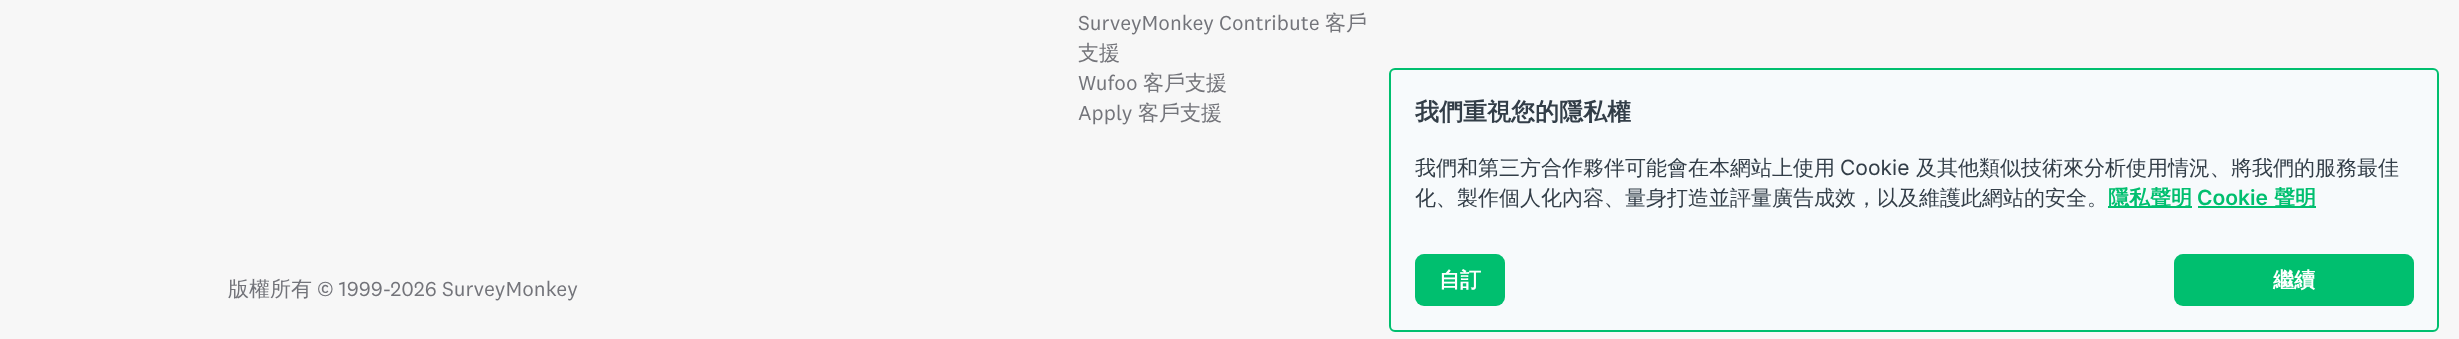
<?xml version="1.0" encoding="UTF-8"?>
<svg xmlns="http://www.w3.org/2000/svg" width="2459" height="339">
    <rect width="100%" height="100%" fill="#F7F7F7"/>
    <text x="1078" y="30" font-family="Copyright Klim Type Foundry" font-size="21" fill="#73747A">SurveyMonkey Contribute</text>
    <text x="1325" y="30" font-family="WenQuanYi Zen Hei" font-size="21" font-weight="500" fill="#73747A">客戶</text>
    <text x="1078" y="60" font-family="WenQuanYi Zen Hei" font-size="21" font-weight="500" fill="#73747A">支援</text>
    <text x="1078" y="90" font-family="Copyright Klim Type Foundry" font-size="21" fill="#73747A">Wufoo</text>
    <text x="1143" y="90" font-family="WenQuanYi Zen Hei" font-size="21" font-weight="500" fill="#73747A">客戶支援</text>
    <text x="1078" y="120" font-family="Copyright Klim Type Foundry" font-size="21" fill="#73747A">Apply</text>
    <text x="1138" y="120" font-family="WenQuanYi Zen Hei" font-size="21" font-weight="500" fill="#73747A">客戶支援</text>
    <text x="228" y="296" font-family="WenQuanYi Zen Hei" font-size="21" font-weight="500" fill="#73747A">版權所有</text>
    <text x="317" y="296" font-family="Copyright Klim Type Foundry" font-size="21" fill="#73747A">© 1999-2026 SurveyMonkey</text>
    <rect x="1390" y="69" width="1048" height="262" rx="5" fill="#F7FAFC" stroke="#00BF6F" stroke-width="2"/>
    <text x="1415" y="120" font-family="WenQuanYi Zen Hei" font-size="24" font-weight="700" fill="#333E48">我們重視您的隱私權</text>
    <text x="1415" y="175" font-family="WenQuanYi Zen Hei" font-size="21" font-weight="500" fill="#333E48">我們和第三方合作夥伴可能會在本網站上使用</text>
    <text x="1840" y="175" font-family="Inter" font-size="21" fill="#333E48">Cookie</text>
    <text x="1916" y="175" font-family="WenQuanYi Zen Hei" font-size="21" font-weight="500" fill="#333E48">及其他類似技術來分析使用情況、將我們的服務最佳</text>
    <text x="1415" y="205" font-family="WenQuanYi Zen Hei" font-size="21" font-weight="500" fill="#333E48">化、製作個人化內容、量身打造並評量廣告成效，以及維護此網站的安全。</text>
    <rect x="2108" y="206" width="84" height="2" fill="#00BF6F"/>
    <text x="2108" y="205" font-family="WenQuanYi Zen Hei" font-size="21" font-weight="700" fill="#00BF6F">隱私聲明</text>
    <text x="2197" y="205" font-family="Inter" font-size="21" font-weight="600" fill="#00BF6F">Cookie</text>
    <rect x="2198" y="206" width="118" height="2" fill="#00BF6F"/>
    <text x="2274" y="205" font-family="WenQuanYi Zen Hei" font-size="21" font-weight="700" fill="#00BF6F">聲明</text>
    <rect x="1415" y="254" width="90" height="52" rx="9" fill="#00BF6F"/>
    <text x="1439" y="287" font-family="WenQuanYi Zen Hei" font-size="21" font-weight="700" fill="#FFFFFF">自訂</text>
    <rect x="2174" y="254" width="240" height="52" rx="9" fill="#00BF6F"/>
    <text x="2273" y="287" font-family="WenQuanYi Zen Hei" font-size="21" font-weight="700" fill="#FFFFFF">繼續</text>
</svg>
